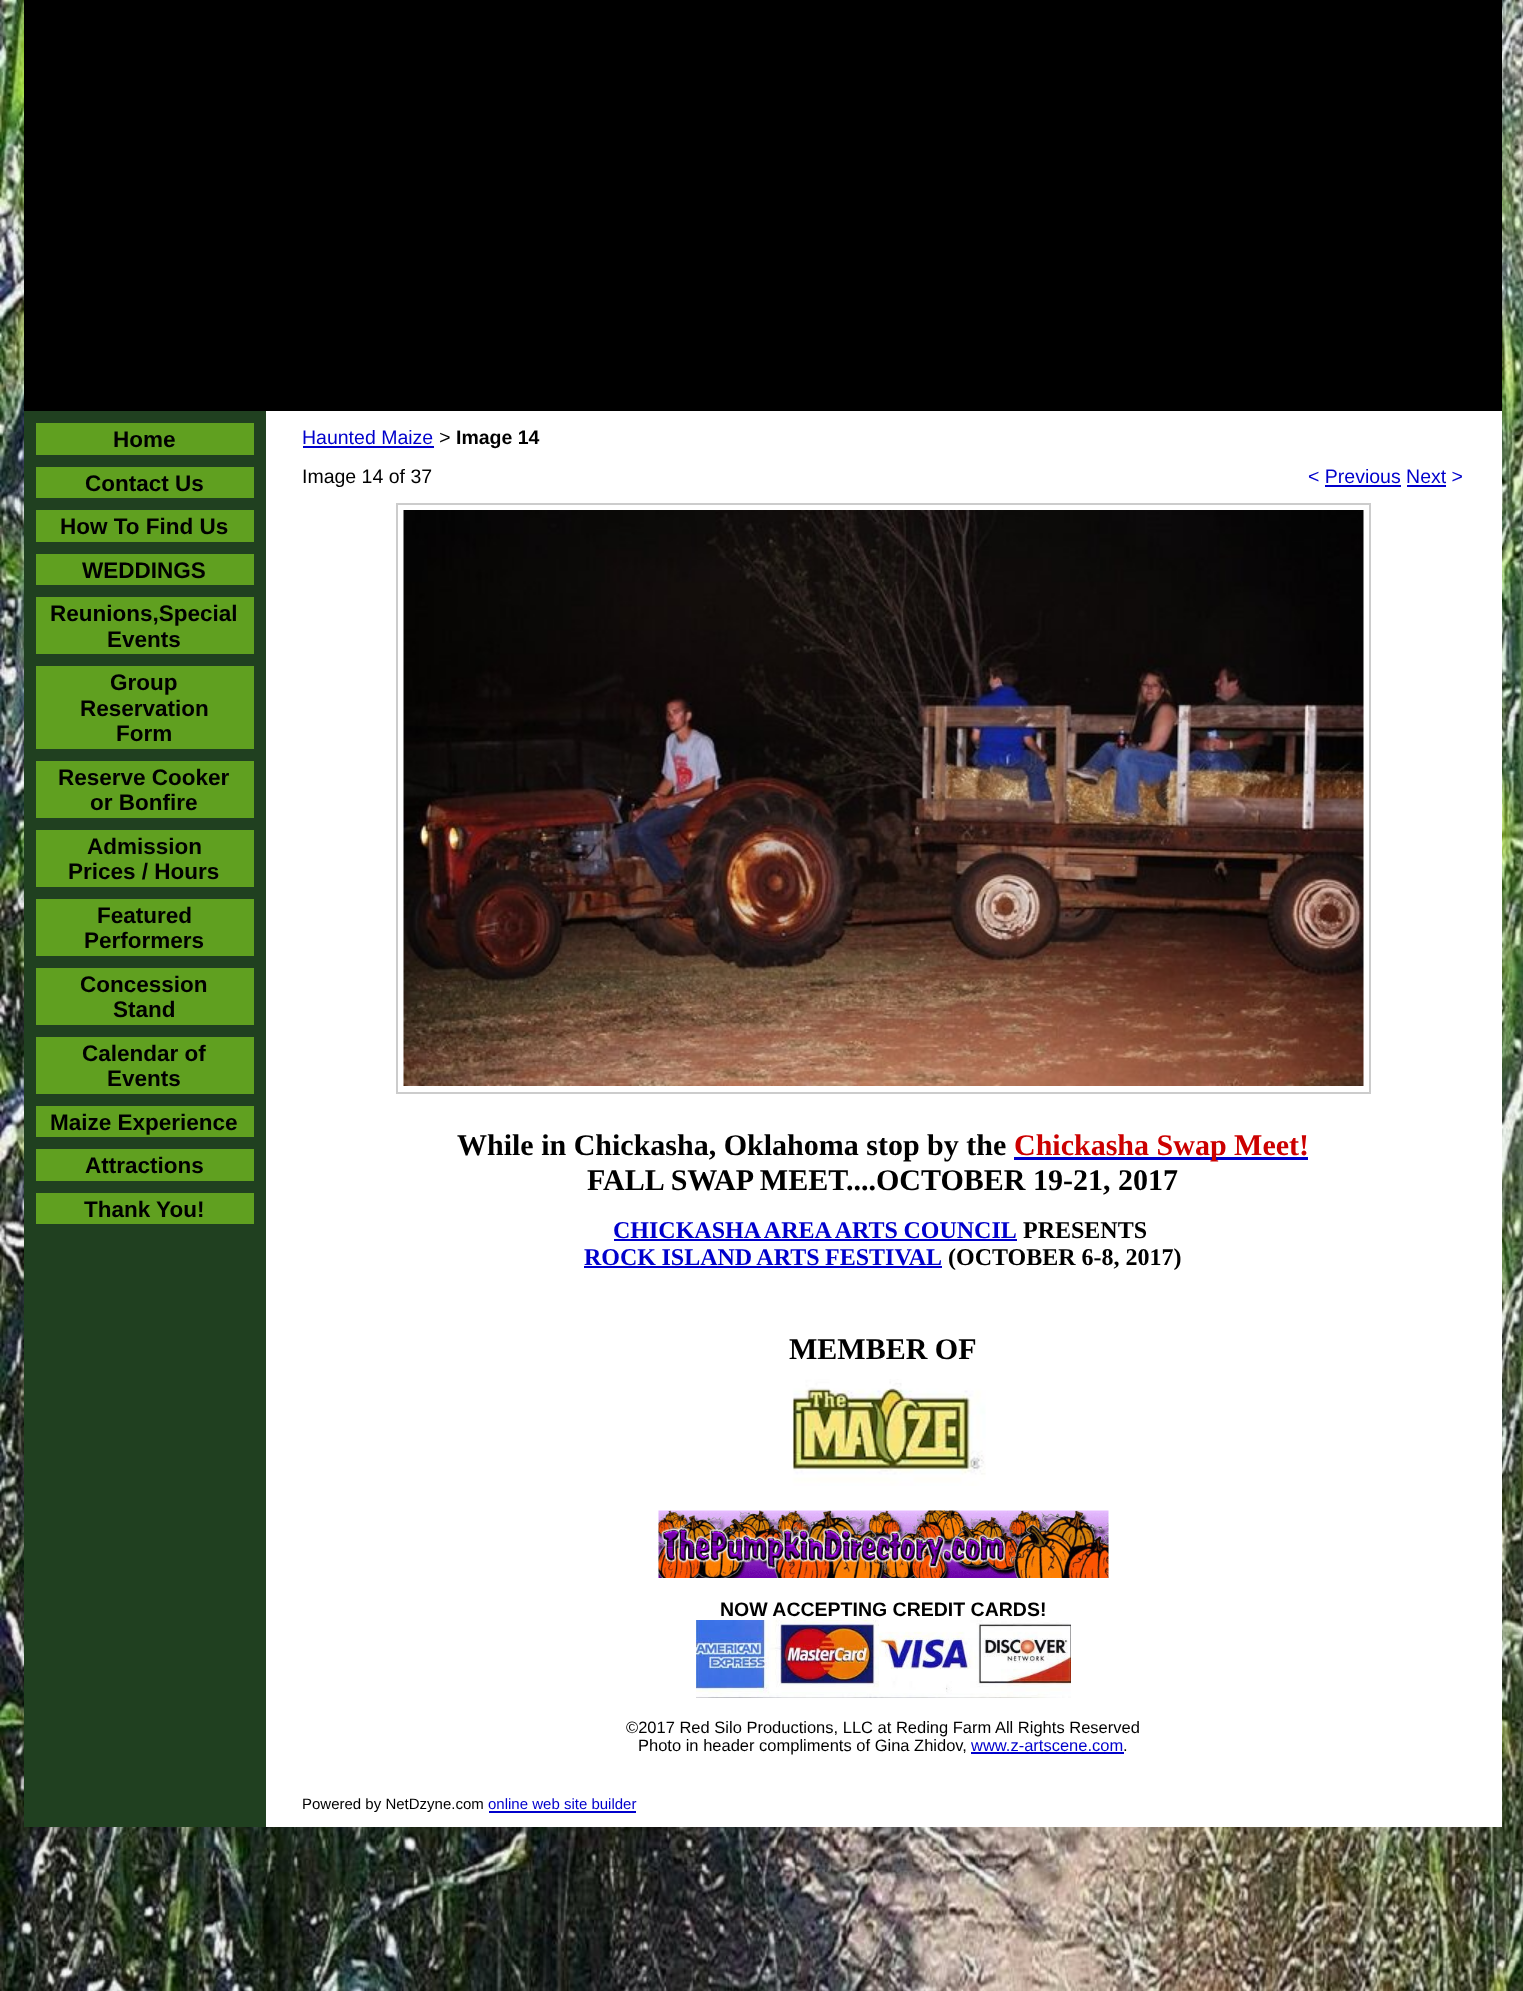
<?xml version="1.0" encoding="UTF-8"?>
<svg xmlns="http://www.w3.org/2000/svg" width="1523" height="1991">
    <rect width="100%" height="100%" fill="#FFFFFF"/>
    <image x="0" y="0" width="1523" height="1991" href="img_01.png"/>
    <rect x="24" y="0" width="1478" height="411" fill="#000000"/>
    <rect x="24" y="411" width="242" height="1416" fill="#204020"/>
    <rect x="36" y="423" width="218" height="32" fill="#60A020"/>
    <text x="113" y="447" font-family="Liberation Sans" font-size="22.5" font-weight="700" fill="#000000">Home</text>
    <rect x="36" y="467" width="218" height="31" fill="#60A020"/>
    <text x="85" y="491" font-family="Liberation Sans" font-size="22.5" font-weight="700" fill="#000000">Contact Us</text>
    <rect x="36" y="510" width="218" height="32" fill="#60A020"/>
    <text x="60" y="534" font-family="Liberation Sans" font-size="22.5" font-weight="700" fill="#000000">How To Find Us</text>
    <rect x="36" y="554" width="218" height="31" fill="#60A020"/>
    <text x="82" y="578" font-family="Liberation Sans" font-size="22.5" font-weight="700" fill="#000000">WEDDINGS</text>
    <rect x="36" y="597" width="218" height="57" fill="#60A020"/>
    <text x="50" y="621" font-family="Liberation Sans" font-size="22.5" font-weight="700" fill="#000000">Reunions,Special</text>
    <text x="107" y="647" font-family="Liberation Sans" font-size="22.5" font-weight="700" fill="#000000">Events</text>
    <rect x="36" y="666" width="218" height="83" fill="#60A020"/>
    <text x="110" y="690" font-family="Liberation Sans" font-size="22.5" font-weight="700" fill="#000000">Group</text>
    <text x="80" y="716" font-family="Liberation Sans" font-size="22.5" font-weight="700" fill="#000000">Reservation</text>
    <text x="116" y="741" font-family="Liberation Sans" font-size="22.5" font-weight="700" fill="#000000">Form</text>
    <rect x="36" y="761" width="218" height="57" fill="#60A020"/>
    <text x="58" y="785" font-family="Liberation Sans" font-size="22.5" font-weight="700" fill="#000000">Reserve Cooker</text>
    <text x="90" y="810" font-family="Liberation Sans" font-size="22.5" font-weight="700" fill="#000000">or Bonfire</text>
    <rect x="36" y="830" width="218" height="57" fill="#60A020"/>
    <text x="87" y="854" font-family="Liberation Sans" font-size="22.5" font-weight="700" fill="#000000">Admission</text>
    <text x="68" y="879" font-family="Liberation Sans" font-size="22.5" font-weight="700" fill="#000000">Prices / Hours</text>
    <rect x="36" y="899" width="218" height="57" fill="#60A020"/>
    <text x="97" y="923" font-family="Liberation Sans" font-size="22.5" font-weight="700" fill="#000000">Featured</text>
    <text x="84" y="948" font-family="Liberation Sans" font-size="22.5" font-weight="700" fill="#000000">Performers</text>
    <rect x="36" y="968" width="218" height="57" fill="#60A020"/>
    <text x="80" y="992" font-family="Liberation Sans" font-size="22.5" font-weight="700" fill="#000000">Concession</text>
    <text x="113" y="1017" font-family="Liberation Sans" font-size="22.5" font-weight="700" fill="#000000">Stand</text>
    <rect x="36" y="1037" width="218" height="57" fill="#60A020"/>
    <text x="82" y="1061" font-family="Liberation Sans" font-size="22.5" font-weight="700" fill="#000000">Calendar of</text>
    <text x="107" y="1086" font-family="Liberation Sans" font-size="22.5" font-weight="700" fill="#000000">Events</text>
    <rect x="36" y="1106" width="218" height="31" fill="#60A020"/>
    <text x="50" y="1130" font-family="Liberation Sans" font-size="22.5" font-weight="700" fill="#000000">Maize Experience</text>
    <rect x="36" y="1149" width="218" height="32" fill="#60A020"/>
    <text x="85" y="1173" font-family="Liberation Sans" font-size="22.5" font-weight="700" fill="#000000">Attractions</text>
    <rect x="36" y="1193" width="218" height="31" fill="#60A020"/>
    <text x="84" y="1217" font-family="Liberation Sans" font-size="22.5" font-weight="700" fill="#000000">Thank You!</text>
    <rect x="266" y="411" width="1236" height="1416" fill="#FFFFFF"/>
    <text x="302" y="444" font-family="Liberation Sans" font-size="19.5" fill="#0000CC">Haunted Maize</text>
    <rect x="303" y="446" width="131" height="2" fill="#0000CC"/>
    <text x="439" y="444" font-family="Liberation Mono" font-size="19.5" fill="#000000">&gt;</text>
    <text x="456" y="444" font-family="Liberation Sans" font-size="19.5" font-weight="700" fill="#000000">Image 14</text>
    <text x="302" y="483" font-family="Liberation Sans" font-size="19.5" fill="#000000">Image 14 of 37</text>
    <text x="1308" y="483" font-family="Liberation Sans" font-size="19.5" fill="#0000CC">&lt; Previous Next &gt;</text>
    <rect x="1325" y="485" width="76" height="2" fill="#0000CC"/>
    <rect x="1407" y="485" width="39" height="2" fill="#0000CC"/>
    <rect x="397" y="504" width="973" height="589" fill="none" stroke="#CCCCCC" stroke-width="2"/>
    <image x="403" y="510" width="961" height="576" href="img_02.png"/>
    <text x="457" y="1155" font-family="Liberation Serif" font-size="30" font-weight="700" fill="#000000">While in Chickasha, Oklahoma stop by the</text>
    <rect x="1014" y="1157" width="294" height="3" fill="#0000CC"/>
    <text x="1014" y="1155" font-family="Liberation Serif" font-size="30" font-weight="700" fill="#CC0000">Chickasha Swap Meet!</text>
    <text x="587" y="1190" font-family="Liberation Serif" font-size="30" font-weight="700" fill="#000000">FALL SWAP MEET....OCTOBER 19-21, 2017</text>
    <text x="613" y="1238" word-spacing="-0.5" font-family="Liberation Serif" font-size="24" font-weight="700" fill="#0000CC">CHICKASHA AREA ARTS COUNCIL</text>
    <rect x="614" y="1239" width="403" height="2" fill="#0000CC"/>
    <text x="1023" y="1238" font-family="Liberation Serif" font-size="24" font-weight="700" fill="#000000">PRESENTS</text>
    <text x="584" y="1265" word-spacing="-0.5" font-family="Liberation Serif" font-size="24" font-weight="700" fill="#0000CC">ROCK ISLAND ARTS FESTIVAL</text>
    <rect x="584" y="1266" width="358" height="2" fill="#0000CC"/>
    <text x="948" y="1265" font-family="Liberation Serif" font-size="24" font-weight="700" fill="#000000">(OCTOBER 6-8, 2017)</text>
    <text x="789" y="1359" font-family="Liberation Serif" font-size="30" font-weight="700" fill="#000000">MEMBER OF</text>
    <image x="792" y="1379" width="194" height="107" href="img_03.png"/>
    <image x="658" y="1510" width="451" height="68" href="img_04.png"/>
    <text x="720" y="1616" font-family="Liberation Sans" font-size="19.5" font-weight="700" fill="#000000">NOW ACCEPTING CREDIT CARDS!</text>
    <image x="696" y="1620" width="375" height="78" href="img_05.png"/>
    <text x="626" y="1733" font-family="Liberation Sans" font-size="16.5" fill="#000000">©2017 Red Silo Productions, LLC at Reding Farm All Rights Reserved</text>
    <text x="638" y="1751" font-family="Liberation Sans" font-size="16.5" fill="#000000">Photo in header compliments of Gina Zhidov,</text>
    <text x="971" y="1751" font-family="Liberation Sans" font-size="16.5" fill="#0000CC">www.z-artscene.com</text>
    <text x="1123" y="1751" font-family="Liberation Sans" font-size="16.5" fill="#000000">.</text>
    <rect x="971" y="1752" width="153" height="2" fill="#0000CC"/>
    <text x="302" y="1809" font-family="Liberation Sans" font-size="15" fill="#000000">Powered by NetDzyne.com</text>
    <text x="488" y="1809" font-family="Liberation Sans" font-size="15" fill="#0000CC">online web site builder</text>
    <rect x="489" y="1811" width="147" height="2" fill="#0000CC"/>
</svg>
